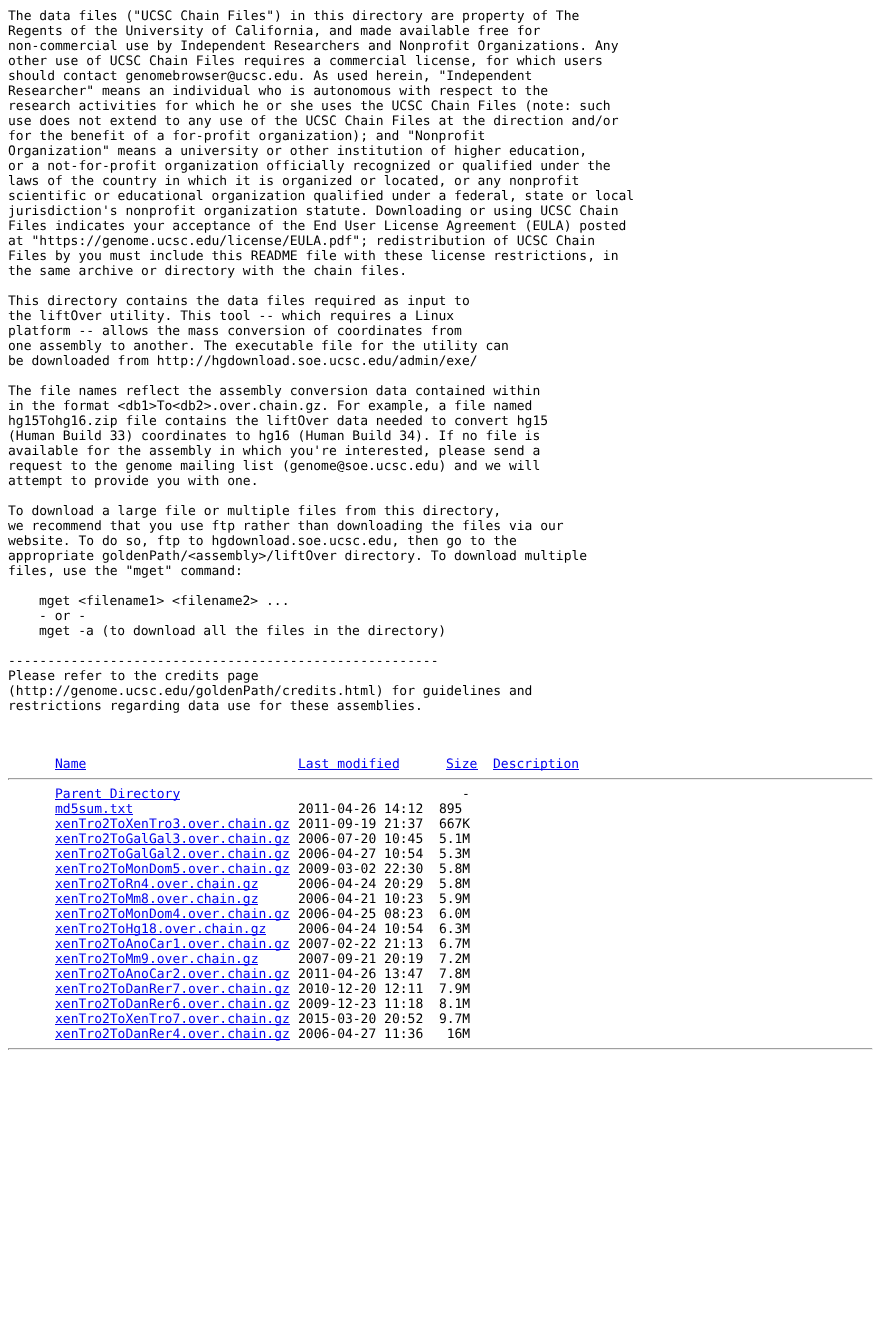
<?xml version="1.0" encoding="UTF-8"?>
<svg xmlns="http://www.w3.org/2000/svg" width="881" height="1335">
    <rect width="100%" height="100%" fill="#FFFFFF"/>
    <text font-family="DejaVu Sans Mono" font-size="13" fill="#000000">
        <tspan x="8" y="20">The data files ("UCSC Chain Files") in this directory are property of The</tspan>
        <tspan x="8" y="35">Regents of the University of California, and made available free for</tspan>
        <tspan x="8" y="50">non-commercial use by Independent Researchers and Nonprofit Organizations. Any</tspan>
        <tspan x="8" y="65">other use of UCSC Chain Files requires a commercial license, for which users</tspan>
        <tspan x="8" y="80">should contact genomebrowser@ucsc.edu. As used herein, "Independent</tspan>
        <tspan x="8" y="95">Researcher" means an individual who is autonomous with respect to the</tspan>
        <tspan x="8" y="110">research activities for which he or she uses the UCSC Chain Files (note: such</tspan>
        <tspan x="8" y="125">use does not extend to any use of the UCSC Chain Files at the direction and/or</tspan>
        <tspan x="8" y="140">for the benefit of a for-profit organization); and "Nonprofit</tspan>
        <tspan x="8" y="155">Organization" means a university or other institution of higher education,</tspan>
        <tspan x="8" y="170">or a not-for-profit organization officially recognized or qualified under the</tspan>
        <tspan x="8" y="185">laws of the country in which it is organized or located, or any nonprofit</tspan>
        <tspan x="8" y="200">scientific or educational organization qualified under a federal, state or local</tspan>
        <tspan x="8" y="215">jurisdiction's nonprofit organization statute. Downloading or using UCSC Chain</tspan>
        <tspan x="8" y="230">Files indicates your acceptance of the End User License Agreement (EULA) posted</tspan>
        <tspan x="8" y="245">at "https://genome.ucsc.edu/license/EULA.pdf"; redistribution of UCSC Chain</tspan>
        <tspan x="8" y="260">Files by you must include this README file with these license restrictions, in</tspan>
        <tspan x="8" y="275">the same archive or directory with the chain files.</tspan>
    </text>
    <text font-family="DejaVu Sans Mono" font-size="13" fill="#000000">
        <tspan x="8" y="305">This directory contains the data files required as input to</tspan>
        <tspan x="8" y="320">the liftOver utility. This tool -- which requires a Linux</tspan>
        <tspan x="8" y="335">platform -- allows the mass conversion of coordinates from</tspan>
        <tspan x="8" y="350">one assembly to another. The executable file for the utility can</tspan>
        <tspan x="8" y="365">be downloaded from http://hgdownload.soe.ucsc.edu/admin/exe/</tspan>
    </text>
    <text font-family="DejaVu Sans Mono" font-size="13" fill="#000000">
        <tspan x="8" y="395">The file names reflect the assembly conversion data contained within</tspan>
        <tspan x="8" y="410">in the format &lt;db1&gt;To&lt;db2&gt;.over.chain.gz. For example, a file named</tspan>
        <tspan x="8" y="425">hg15Tohg16.zip file contains the liftOver data needed to convert hg15</tspan>
        <tspan x="8" y="440">(Human Build 33) coordinates to hg16 (Human Build 34). If no file is</tspan>
        <tspan x="8" y="455">available for the assembly in which you're interested, please send a</tspan>
        <tspan x="8" y="470">request to the genome mailing list (genome@soe.ucsc.edu) and we will</tspan>
        <tspan x="8" y="485">attempt to provide you with one.</tspan>
    </text>
    <text font-family="DejaVu Sans Mono" font-size="13" fill="#000000">
        <tspan x="8" y="515">To download a large file or multiple files from this directory,</tspan>
        <tspan x="8" y="530">we recommend that you use ftp rather than downloading the files via our</tspan>
        <tspan x="8" y="545">website. To do so, ftp to hgdownload.soe.ucsc.edu, then go to the</tspan>
        <tspan x="8" y="560">appropriate goldenPath/&lt;assembly&gt;/liftOver directory. To download multiple</tspan>
        <tspan x="8" y="575">files, use the "mget" command:</tspan>
    </text>
    <text font-family="DejaVu Sans Mono" font-size="13" fill="#000000">
        <tspan x="39" y="605">mget &lt;filename1&gt; &lt;filename2&gt; ...</tspan>
        <tspan x="39" y="620">- or -</tspan>
        <tspan x="39" y="635">mget -a (to download all the files in the directory)</tspan>
    </text>
    <text font-family="DejaVu Sans Mono" font-size="13" fill="#000000">
        <tspan x="8" y="665">-------------------------------------------------------</tspan>
        <tspan x="8" y="680">Please refer to the credits page</tspan>
        <tspan x="8" y="695">(http://genome.ucsc.edu/goldenPath/credits.html) for guidelines and</tspan>
        <tspan x="8" y="710">restrictions regarding data use for these assemblies.</tspan>
    </text>
    <text x="55" y="768" font-family="DejaVu Sans Mono" font-size="13" fill="#0000EE">Name</text>
    <rect x="55" y="769" width="31" height="1" fill="#0000EE"/>
    <text x="298" y="768" font-family="DejaVu Sans Mono" font-size="13" fill="#0000EE">Last modified</text>
    <rect x="298" y="769" width="101" height="1" fill="#0000EE"/>
    <text x="446" y="768" font-family="DejaVu Sans Mono" font-size="13" fill="#0000EE">Size</text>
    <rect x="446" y="769" width="32" height="1" fill="#0000EE"/>
    <rect x="493" y="769" width="86" height="1" fill="#0000EE"/>
    <text x="493" y="768" font-family="DejaVu Sans Mono" font-size="13" fill="#0000EE">Description</text>
    <rect x="8" y="778" width="865" height="1" fill="#9F9F9F"/>
    <rect x="872" y="778" width="1" height="2" fill="#EEEEEE"/>
    <rect x="8" y="779" width="865" height="1" fill="#EEEEEE"/>
    <rect x="8" y="778" width="1" height="2" fill="#9F9F9F"/>
    <rect x="55" y="799" width="125" height="1" fill="#0000EE"/>
    <text x="55" y="798" font-family="DejaVu Sans Mono" font-size="13" fill="#0000EE">Parent Directory</text>
    <text x="462" y="798" font-family="DejaVu Sans Mono" font-size="13" fill="#000000">-</text>
    <text x="55" y="813" font-family="DejaVu Sans Mono" font-size="13" fill="#0000EE">md5sum.txt</text>
    <rect x="55" y="814" width="78" height="1" fill="#0000EE"/>
    <text x="298" y="813" font-family="DejaVu Sans Mono" font-size="13" fill="#000000" xml:space="preserve">2011-04-26 14:12  895</text>
    <rect x="55" y="829" width="235" height="1" fill="#0000EE"/>
    <text x="55" y="828" font-family="DejaVu Sans Mono" font-size="13" fill="#0000EE">xenTro2ToXenTro3.over.chain.gz</text>
    <text x="298" y="828" font-family="DejaVu Sans Mono" font-size="13" fill="#000000" xml:space="preserve">2011-09-19 21:37  667K</text>
    <rect x="55" y="844" width="235" height="1" fill="#0000EE"/>
    <text x="55" y="843" font-family="DejaVu Sans Mono" font-size="13" fill="#0000EE">xenTro2ToGalGal3.over.chain.gz</text>
    <text x="298" y="843" font-family="DejaVu Sans Mono" font-size="13" fill="#000000" xml:space="preserve">2006-07-20 10:45  5.1M</text>
    <rect x="55" y="859" width="235" height="1" fill="#0000EE"/>
    <text x="55" y="858" font-family="DejaVu Sans Mono" font-size="13" fill="#0000EE">xenTro2ToGalGal2.over.chain.gz</text>
    <text x="298" y="858" font-family="DejaVu Sans Mono" font-size="13" fill="#000000" xml:space="preserve">2006-04-27 10:54  5.3M</text>
    <rect x="55" y="874" width="235" height="1" fill="#0000EE"/>
    <text x="55" y="873" font-family="DejaVu Sans Mono" font-size="13" fill="#0000EE">xenTro2ToMonDom5.over.chain.gz</text>
    <text x="298" y="873" font-family="DejaVu Sans Mono" font-size="13" fill="#000000" xml:space="preserve">2009-03-02 22:30  5.8M</text>
    <rect x="55" y="889" width="203" height="1" fill="#0000EE"/>
    <text x="55" y="888" font-family="DejaVu Sans Mono" font-size="13" fill="#0000EE">xenTro2ToRn4.over.chain.gz</text>
    <text x="298" y="888" font-family="DejaVu Sans Mono" font-size="13" fill="#000000" xml:space="preserve">2006-04-24 20:29  5.8M</text>
    <rect x="55" y="904" width="203" height="1" fill="#0000EE"/>
    <text x="55" y="903" font-family="DejaVu Sans Mono" font-size="13" fill="#0000EE">xenTro2ToMm8.over.chain.gz</text>
    <text x="298" y="903" font-family="DejaVu Sans Mono" font-size="13" fill="#000000" xml:space="preserve">2006-04-21 10:23  5.9M</text>
    <rect x="55" y="919" width="235" height="1" fill="#0000EE"/>
    <text x="55" y="918" font-family="DejaVu Sans Mono" font-size="13" fill="#0000EE">xenTro2ToMonDom4.over.chain.gz</text>
    <text x="298" y="918" font-family="DejaVu Sans Mono" font-size="13" fill="#000000" xml:space="preserve">2006-04-25 08:23  6.0M</text>
    <rect x="55" y="934" width="211" height="1" fill="#0000EE"/>
    <text x="55" y="933" font-family="DejaVu Sans Mono" font-size="13" fill="#0000EE">xenTro2ToHg18.over.chain.gz</text>
    <text x="298" y="933" font-family="DejaVu Sans Mono" font-size="13" fill="#000000" xml:space="preserve">2006-04-24 10:54  6.3M</text>
    <rect x="55" y="949" width="235" height="1" fill="#0000EE"/>
    <text x="55" y="948" font-family="DejaVu Sans Mono" font-size="13" fill="#0000EE">xenTro2ToAnoCar1.over.chain.gz</text>
    <text x="298" y="948" font-family="DejaVu Sans Mono" font-size="13" fill="#000000" xml:space="preserve">2007-02-22 21:13  6.7M</text>
    <rect x="55" y="964" width="203" height="1" fill="#0000EE"/>
    <text x="55" y="963" font-family="DejaVu Sans Mono" font-size="13" fill="#0000EE">xenTro2ToMm9.over.chain.gz</text>
    <text x="298" y="963" font-family="DejaVu Sans Mono" font-size="13" fill="#000000" xml:space="preserve">2007-09-21 20:19  7.2M</text>
    <rect x="55" y="979" width="235" height="1" fill="#0000EE"/>
    <text x="55" y="978" font-family="DejaVu Sans Mono" font-size="13" fill="#0000EE">xenTro2ToAnoCar2.over.chain.gz</text>
    <text x="298" y="978" font-family="DejaVu Sans Mono" font-size="13" fill="#000000" xml:space="preserve">2011-04-26 13:47  7.8M</text>
    <rect x="55" y="994" width="235" height="1" fill="#0000EE"/>
    <text x="55" y="993" font-family="DejaVu Sans Mono" font-size="13" fill="#0000EE">xenTro2ToDanRer7.over.chain.gz</text>
    <text x="298" y="993" font-family="DejaVu Sans Mono" font-size="13" fill="#000000" xml:space="preserve">2010-12-20 12:11  7.9M</text>
    <rect x="55" y="1009" width="235" height="1" fill="#0000EE"/>
    <text x="55" y="1008" font-family="DejaVu Sans Mono" font-size="13" fill="#0000EE">xenTro2ToDanRer6.over.chain.gz</text>
    <text x="298" y="1008" font-family="DejaVu Sans Mono" font-size="13" fill="#000000" xml:space="preserve">2009-12-23 11:18  8.1M</text>
    <rect x="55" y="1024" width="235" height="1" fill="#0000EE"/>
    <text x="55" y="1023" font-family="DejaVu Sans Mono" font-size="13" fill="#0000EE">xenTro2ToXenTro7.over.chain.gz</text>
    <text x="298" y="1023" font-family="DejaVu Sans Mono" font-size="13" fill="#000000" xml:space="preserve">2015-03-20 20:52  9.7M</text>
    <rect x="55" y="1039" width="235" height="1" fill="#0000EE"/>
    <text x="55" y="1038" font-family="DejaVu Sans Mono" font-size="13" fill="#0000EE">xenTro2ToDanRer4.over.chain.gz</text>
    <text x="298" y="1038" font-family="DejaVu Sans Mono" font-size="13" fill="#000000" xml:space="preserve">2006-04-27 11:36   16M</text>
    <rect x="8" y="1048" width="865" height="1" fill="#9F9F9F"/>
    <rect x="872" y="1048" width="1" height="2" fill="#EEEEEE"/>
    <rect x="8" y="1049" width="865" height="1" fill="#EEEEEE"/>
    <rect x="8" y="1048" width="1" height="2" fill="#9F9F9F"/>
</svg>
